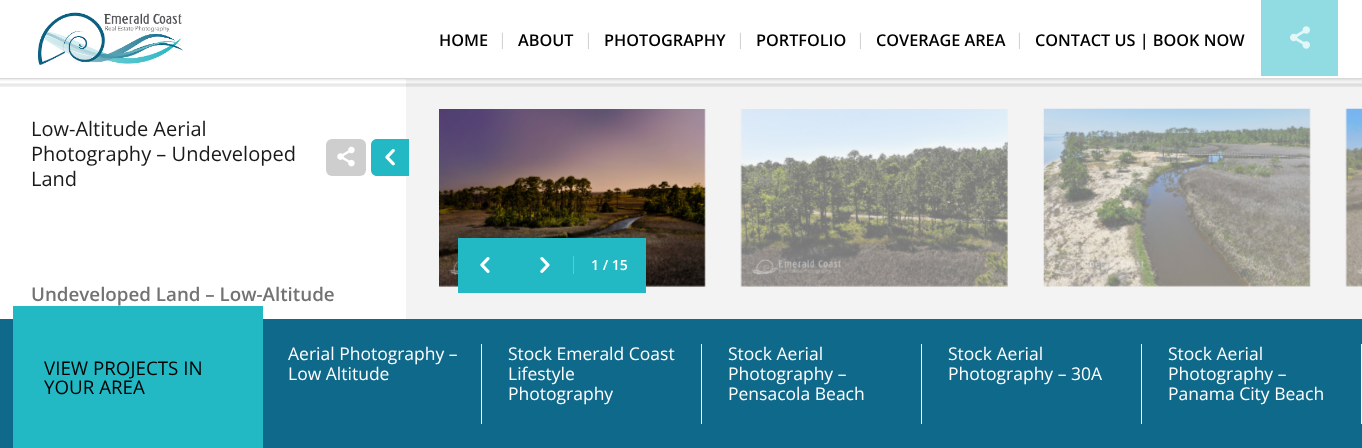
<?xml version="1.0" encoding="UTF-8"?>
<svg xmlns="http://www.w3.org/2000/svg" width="1362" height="448">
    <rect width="100%" height="100%" fill="#F3F3F3"/>
    <rect x="0" y="0" width="1362" height="78" fill="#FFFFFF"/>
    <image x="37" y="12" width="146" height="53" href="img_01.png"/>
    <text x="439" y="46" font-family="Open Sans" font-size="16.25" font-weight="600" fill="#000000">HOME</text>
    <text x="498" y="45" font-family="Open Sans" font-size="16.25" fill="#D3D3D3">|</text>
    <text x="518" y="46" font-family="Open Sans" font-size="16.25" font-weight="600" fill="#000000">ABOUT</text>
    <text x="584" y="45" font-family="Open Sans" font-size="16.25" fill="#D3D3D3">|</text>
    <text x="604" y="46" font-family="Open Sans" font-size="16.25" font-weight="600" fill="#000000">PHOTOGRAPHY</text>
    <text x="736" y="45" font-family="Open Sans" font-size="16.25" fill="#D3D3D3">|</text>
    <text x="756" y="46" font-family="Open Sans" font-size="16.25" font-weight="600" fill="#000000">PORTFOLIO</text>
    <text x="856" y="45" font-family="Open Sans" font-size="16.25" fill="#D3D3D3">|</text>
    <text x="876" y="46" font-family="Open Sans" font-size="16.25" font-weight="600" fill="#000000">COVERAGE AREA</text>
    <text x="1015" y="45" font-family="Open Sans" font-size="16.25" fill="#D3D3D3">|</text>
    <text x="1035" y="46" font-family="Open Sans" font-size="16.25" font-weight="600" fill="#000000">CONTACT US | BOOK NOW</text>
    <rect x="1261" y="0" width="77" height="76" fill="#91DCE2"/>
    <image x="1290" y="26" width="20" height="23" href="img_02.png"/>
    <rect x="0" y="79" width="406" height="240" fill="#FFFFFF"/>
    <image x="0" y="78" width="1362" height="9" href="img_03.png"/>
    <text font-family="Open Sans" font-size="20" fill="#1A1A1A">
        <tspan x="31" y="136">Low-Altitude Aerial</tspan>
        <tspan x="31" y="161">Photography – Undeveloped</tspan>
        <tspan x="31" y="186">Land</tspan>
    </text>
    <rect x="326" y="139" width="40" height="37" rx="6" fill="#CECECE"/>
    <image x="337" y="146" width="18" height="21" href="img_04.png"/>
    <path d="M 377 139 H 409 V 176 H 377 C 373.5 176 371 173.5 371 170 V 145 C 371 141.5 373.5 139 377 139 Z" fill="#23B9C4"/>
    <image x="385" y="149" width="10" height="17" href="img_05.png"/>
    <text x="31" y="301" font-family="Open Sans" font-size="18.75" font-weight="600" fill="#737373">Undeveloped Land – Low-Altitude</text>
    <image x="439" y="109" width="267" height="178" href="img_06.png"/>
    <image x="740" y="109" width="268" height="178" href="img_07.png"/>
    <image x="1043" y="108" width="268" height="179" href="img_08.png"/>
    <image x="1345" y="108" width="17" height="179" href="img_09.png"/>
    <rect x="458" y="238" width="188" height="55" fill="#23B9C4"/>
    <image x="480" y="257" width="10" height="16" href="img_10.png"/>
    <image x="540" y="257" width="10" height="16" href="img_11.png"/>
    <rect x="573" y="256" width="1" height="18" fill="#5ACBD3"/>
    <text x="591" y="270" font-family="Open Sans" font-size="14" font-weight="600" fill="#FFFFFF">1 / 15</text>
    <rect x="0" y="319" width="1362" height="129" fill="#0F698A"/>
    <rect x="13" y="306" width="250" height="142" fill="#23B9C4"/>
    <text font-family="Open Sans" font-size="18.75" fill="#000000">
        <tspan x="44" y="375">VIEW PROJECTS IN</tspan>
        <tspan x="44" y="394">YOUR AREA</tspan>
    </text>
    <text font-family="Open Sans" font-size="17.5" fill="#FFFFFF">
        <tspan x="288" y="360">Aerial Photography –</tspan>
        <tspan x="288" y="380">Low Altitude</tspan>
    </text>
    <rect x="481" y="344" width="1" height="80" fill="#FFFFFF"/>
    <text font-family="Open Sans" font-size="17.5" fill="#FFFFFF">
        <tspan x="508" y="360">Stock Emerald Coast</tspan>
        <tspan x="508" y="380">Lifestyle</tspan>
        <tspan x="508" y="400">Photography</tspan>
    </text>
    <rect x="701" y="344" width="1" height="80" fill="#FFFFFF"/>
    <text font-family="Open Sans" font-size="17.5" fill="#FFFFFF">
        <tspan x="728" y="360">Stock Aerial</tspan>
        <tspan x="728" y="380">Photography –</tspan>
        <tspan x="728" y="400">Pensacola Beach</tspan>
    </text>
    <rect x="921" y="344" width="1" height="80" fill="#FFFFFF"/>
    <text font-family="Open Sans" font-size="17.5" fill="#FFFFFF">
        <tspan x="948" y="360">Stock Aerial</tspan>
        <tspan x="948" y="380">Photography – 30A</tspan>
    </text>
    <rect x="1141" y="344" width="1" height="80" fill="#FFFFFF"/>
    <text font-family="Open Sans" font-size="17.5" fill="#FFFFFF">
        <tspan x="1168" y="360">Stock Aerial</tspan>
        <tspan x="1168" y="380">Photography –</tspan>
        <tspan x="1168" y="400">Panama City Beach</tspan>
    </text>
    <rect x="1361" y="344" width="1" height="80" fill="#FFFFFF"/>
</svg>
